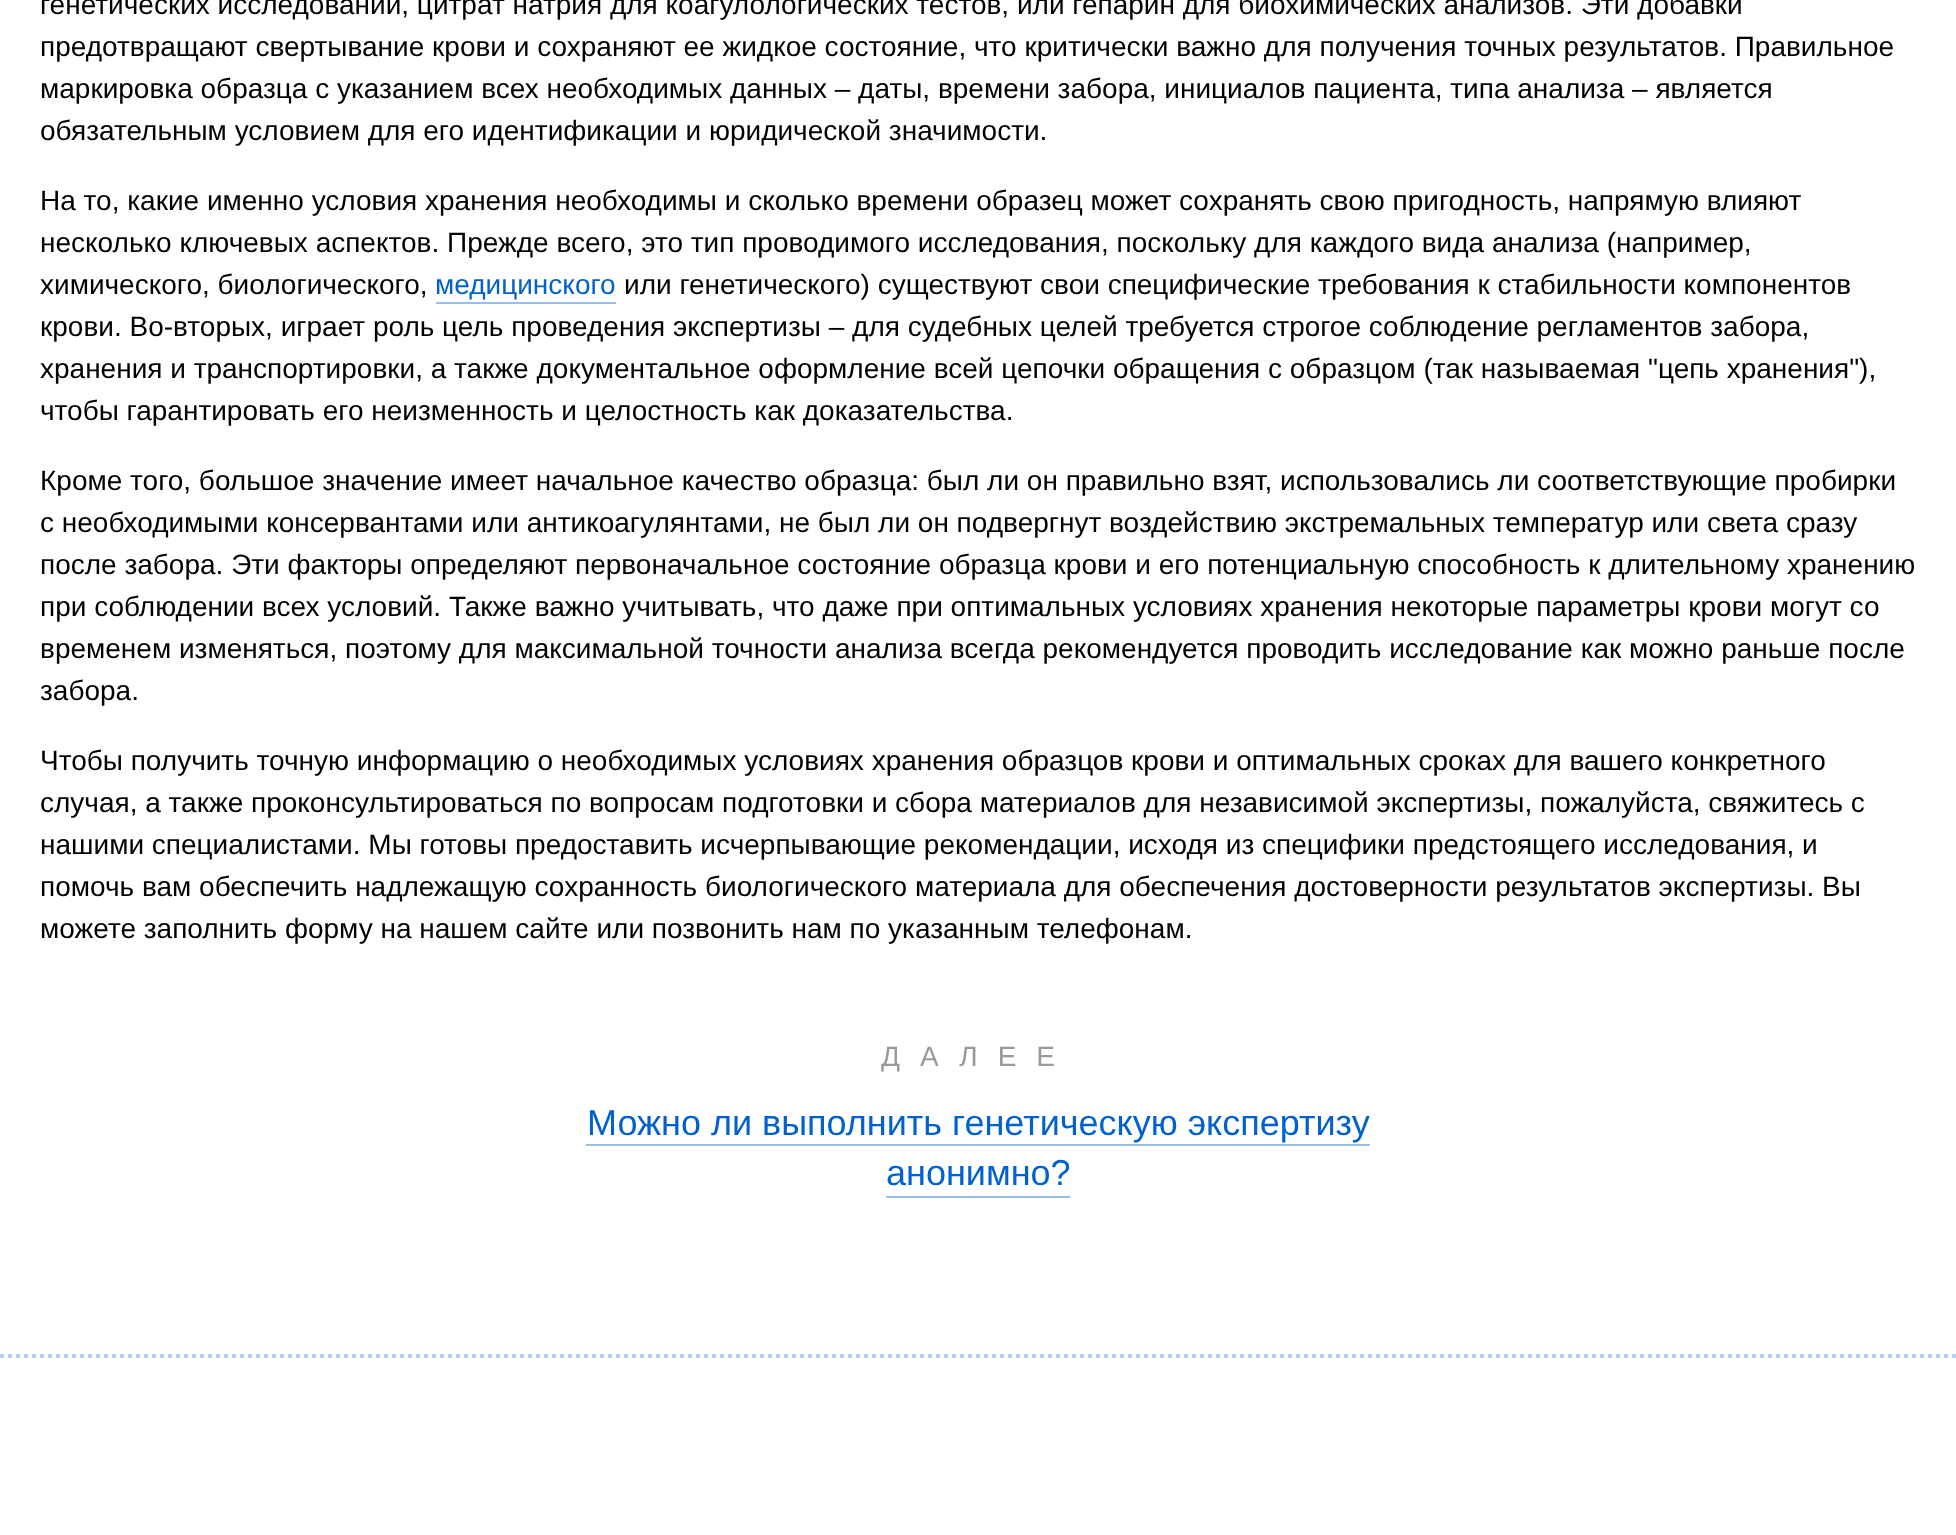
<?xml version="1.0" encoding="UTF-8"?>
<svg xmlns="http://www.w3.org/2000/svg" width="1956" height="1535">
    <rect width="100%" height="100%" fill="#FFFFFF"/>
    <text font-family="Liberation Sans" font-size="28" fill="#000000">
        <tspan x="40" y="14">генетических исследований, цитрат натрия для коагулологических тестов, или гепарин для биохимических анализов. Эти добавки</tspan>
        <tspan x="40" y="56">предотвращают свертывание крови и сохраняют ее жидкое состояние, что критически важно для получения точных результатов. Правильное</tspan>
        <tspan x="40" y="98">маркировка образца с указанием всех необходимых данных – даты, времени забора, инициалов пациента, типа анализа – является</tspan>
        <tspan x="40" y="140">обязательным условием для его идентификации и юридической значимости.</tspan>
    </text>
    <text font-family="Liberation Sans" font-size="28" fill="#000000">
        <tspan x="40" y="210">На то, какие именно условия хранения необходимы и сколько времени образец может сохранять свою пригодность, напрямую влияют</tspan>
        <tspan x="40" y="252">несколько ключевых аспектов. Прежде всего, это тип проводимого исследования, поскольку для каждого вида анализа (например,</tspan>
        <tspan x="40" y="294">химического, биологического,</tspan>
    </text>
    <text x="435" y="294" font-family="Liberation Sans" font-size="28" fill="#0161CE">медицинского</text>
    <rect x="436" y="302" width="180" height="2" fill="#99C0EB"/>
    <text x="624" y="294" font-family="Liberation Sans" font-size="28" fill="#000000">или генетического) существуют свои специфические требования к стабильности компонентов</text>
    <text font-family="Liberation Sans" font-size="28" fill="#000000">
        <tspan x="40" y="336">крови. Во-вторых, играет роль цель проведения экспертизы – для судебных целей требуется строгое соблюдение регламентов забора,</tspan>
        <tspan x="40" y="378">хранения и транспортировки, а также документальное оформление всей цепочки обращения с образцом (так называемая "цепь хранения"),</tspan>
        <tspan x="40" y="420">чтобы гарантировать его неизменность и целостность как доказательства.</tspan>
    </text>
    <text font-family="Liberation Sans" font-size="28" fill="#000000">
        <tspan x="40" y="490">Кроме того, большое значение имеет начальное качество образца: был ли он правильно взят, использовались ли соответствующие пробирки</tspan>
        <tspan x="40" y="532">с необходимыми консервантами или антикоагулянтами, не был ли он подвергнут воздействию экстремальных температур или света сразу</tspan>
        <tspan x="40" y="574">после забора. Эти факторы определяют первоначальное состояние образца крови и его потенциальную способность к длительному хранению</tspan>
        <tspan x="40" y="616">при соблюдении всех условий. Также важно учитывать, что даже при оптимальных условиях хранения некоторые параметры крови могут со</tspan>
        <tspan x="40" y="658">временем изменяться, поэтому для максимальной точности анализа всегда рекомендуется проводить исследование как можно раньше после</tspan>
        <tspan x="40" y="700">забора.</tspan>
    </text>
    <text font-family="Liberation Sans" font-size="28" fill="#000000">
        <tspan x="40" y="770">Чтобы получить точную информацию о необходимых условиях хранения образцов крови и оптимальных сроках для вашего конкретного</tspan>
        <tspan x="40" y="812">случая, а также проконсультироваться по вопросам подготовки и сбора материалов для независимой экспертизы, пожалуйста, свяжитесь с</tspan>
        <tspan x="40" y="854">нашими специалистами. Мы готовы предоставить исчерпывающие рекомендации, исходя из специфики предстоящего исследования, и</tspan>
        <tspan x="40" y="896">помочь вам обеспечить надлежащую сохранность биологического материала для обеспечения достоверности результатов экспертизы. Вы</tspan>
        <tspan x="40" y="938">можете заполнить форму на нашем сайте или позвонить нам по указанным телефонам.</tspan>
    </text>
    <text x="881" y="1066" font-family="Liberation Sans" font-size="28" letter-spacing="20" fill="#999999">ДАЛЕЕ</text>
    <text x="587" y="1135" font-family="Liberation Sans" font-size="36" fill="#0161CE">Можно ли выполнить генетическую экспертизу</text>
    <rect x="586" y="1144" width="784" height="2" fill="#99C0EB"/>
    <text x="886" y="1185" font-family="Liberation Sans" font-size="36" fill="#0161CE">анонимно?</text>
    <rect x="886" y="1196" width="184" height="2" fill="#99C0EB"/>
    <path d="M 0 1356 H 1956" fill="none" stroke="#B3D0F0" stroke-width="4" stroke-dasharray="4 4"/>
</svg>
